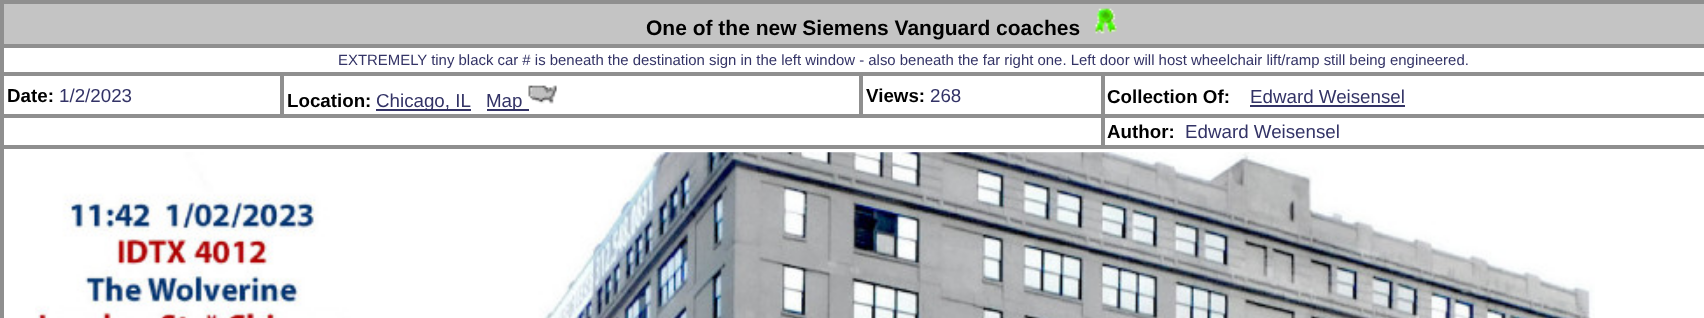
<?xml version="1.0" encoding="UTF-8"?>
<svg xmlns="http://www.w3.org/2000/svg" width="1704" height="318">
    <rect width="100%" height="100%" fill="#FFFFFF"/>
    <rect x="1" y="1" width="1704" height="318" fill="none" stroke="#8F8F8F" stroke-width="2"/>
    <rect x="3" y="3" width="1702" height="42" fill="#C4C4C4" stroke="#8F8F8F" stroke-width="2"/>
    <text x="646" y="35" font-family="Liberation Sans" font-size="21" font-weight="700" fill="#000000">One of the new Siemens Vanguard coaches</text>
    <image x="1095" y="8" width="22" height="26" href="img_01.png"/>
    <rect x="3" y="47" width="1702" height="26" fill="none" stroke="#8F8F8F" stroke-width="2"/>
    <text x="338" y="65" font-family="Liberation Sans" font-size="14.93" fill="#333366">EXTREMELY tiny black car # is beneath the destination sign in the left window - also beneath the far right one. Left door will host wheelchair lift/ramp still being engineered.</text>
    <rect x="3" y="75" width="278" height="40" fill="none" stroke="#8F8F8F" stroke-width="2"/>
    <text x="7" y="102" font-family="Liberation Sans" font-size="18.75" font-weight="700" fill="#000000">Date:</text>
    <text x="59" y="102" font-family="Liberation Sans" font-size="18.75" fill="#333366">1/2/2023</text>
    <rect x="283" y="75" width="577" height="40" fill="none" stroke="#8F8F8F" stroke-width="2"/>
    <text x="287" y="107" font-family="Liberation Sans" font-size="18.75" font-weight="700" fill="#000000">Location:</text>
    <rect x="376" y="109" width="95" height="2" fill="#333366"/>
    <text x="376" y="107" font-family="Liberation Sans" font-size="18.75" fill="#333366">Chicago, IL</text>
    <rect x="487" y="109" width="42" height="2" fill="#333366"/>
    <text x="486" y="107" font-family="Liberation Sans" font-size="18.75" fill="#333366">Map</text>
    <image x="528" y="85" width="29" height="19" href="img_02.png"/>
    <rect x="862" y="75" width="240" height="40" fill="none" stroke="#8F8F8F" stroke-width="2"/>
    <text x="866" y="102" font-family="Liberation Sans" font-size="18.75" font-weight="700" fill="#000000">Views:</text>
    <text x="930" y="102" font-family="Liberation Sans" font-size="18.75" fill="#333366">268</text>
    <rect x="1104" y="75" width="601" height="40" fill="none" stroke="#8F8F8F" stroke-width="2"/>
    <text x="1107" y="103" font-family="Liberation Sans" font-size="18.75" font-weight="700" fill="#000000">Collection Of:</text>
    <text x="1250" y="103" font-family="Liberation Sans" font-size="18.75" fill="#333366">Edward Weisensel</text>
    <rect x="1250" y="105" width="155" height="2" fill="#333366"/>
    <rect x="3" y="117" width="1099" height="29" fill="none" stroke="#8F8F8F" stroke-width="2"/>
    <rect x="1104" y="117" width="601" height="29" fill="none" stroke="#8F8F8F" stroke-width="2"/>
    <text x="1107" y="138" font-family="Liberation Sans" font-size="18.75" font-weight="700" fill="#000000">Author:</text>
    <text x="1185" y="138" font-family="Liberation Sans" font-size="18.75" fill="#333366">Edward Weisensel</text>
    <rect x="3" y="148" width="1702" height="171" fill="none" stroke="#8F8F8F" stroke-width="2"/>
    <image x="35" y="152" width="1560" height="166" href="img_03.png"/>
</svg>
